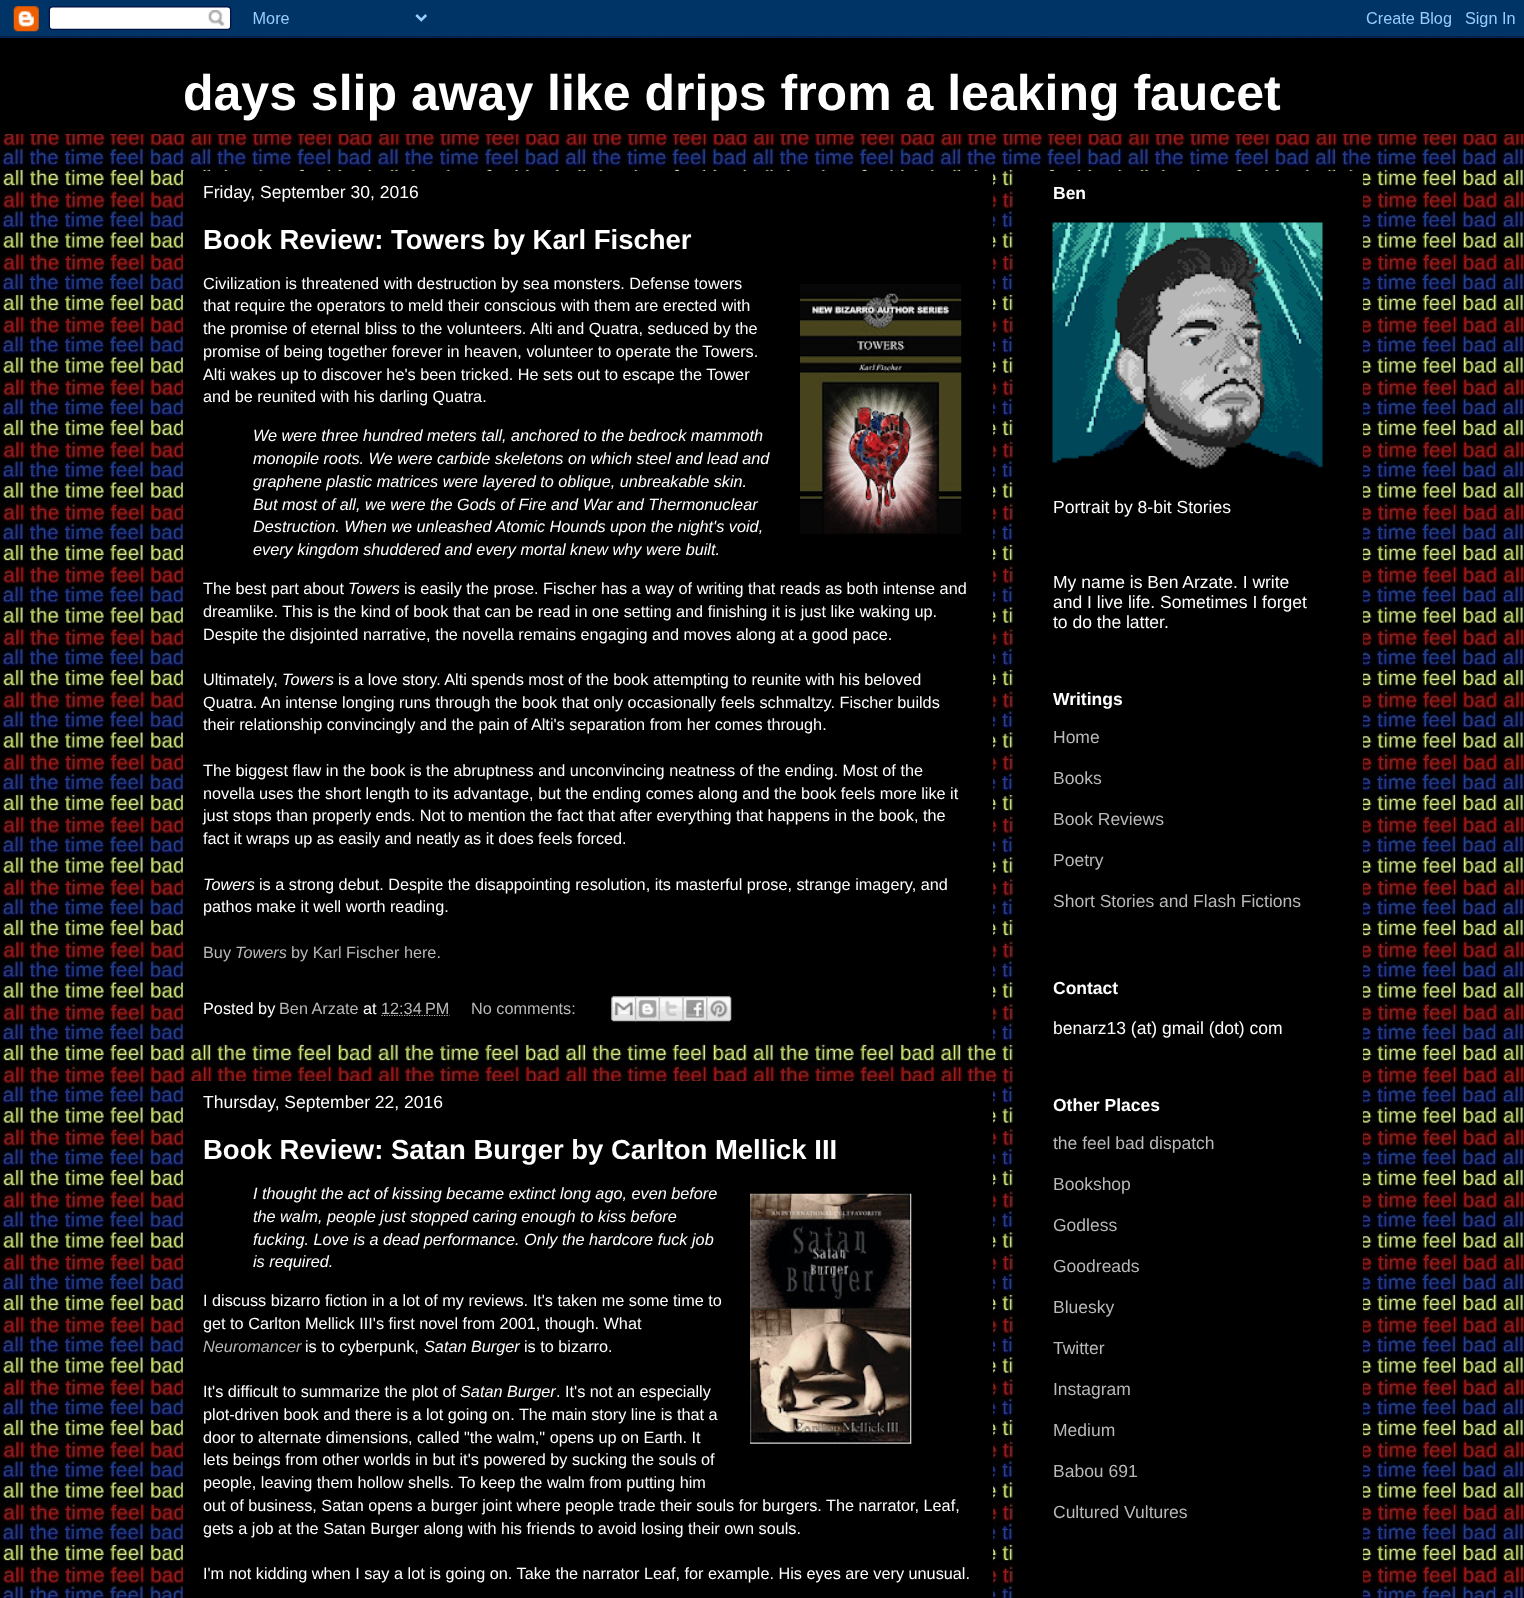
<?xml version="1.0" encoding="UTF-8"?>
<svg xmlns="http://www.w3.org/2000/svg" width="1524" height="1598">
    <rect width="100%" height="100%" fill="#FFFFFF"/>
    <image x="0" y="36" width="1524" height="1562" href="img_01.png"/>
    <image x="0" y="0" width="1524" height="38" href="img_02.png"/>
    <rect x="0" y="38" width="1524" height="96" fill="#000000"/>
    <text x="183" y="110" font-family="Liberation Sans" font-size="50" font-weight="700" fill="#FFFFFF">days slip away like drips from a leaking faucet</text>
    <rect x="183" y="171" width="810" height="873" fill="#000000"/>
    <text x="203" y="198" font-family="Liberation Sans" font-size="17.5" fill="#FFFFFF">Friday, September 30, 2016</text>
    <text x="203" y="249" font-family="Liberation Sans" font-size="27.5" font-weight="700" fill="#FFFFFF">Book Review: Towers by Karl Fischer</text>
    <text x="203" y="289" font-family="Liberation Sans" font-size="16.25" fill="#FFFFFF">Civilization is threatened with destruction by sea monsters. Defense towers</text>
    <image x="800" y="284" width="162" height="250" href="img_03.png"/>
    <text font-family="Liberation Sans" font-size="16.25" fill="#FFFFFF">
        <tspan x="203" y="311">that require the operators to meld their conscious with them are erected with</tspan>
        <tspan x="203" y="334">the promise of eternal bliss to the volunteers. Alti and Quatra, seduced by the</tspan>
        <tspan x="203" y="357">promise of being together forever in heaven, volunteer to operate the Towers.</tspan>
        <tspan x="203" y="380">Alti wakes up to discover he's been tricked. He sets out to escape the Tower</tspan>
        <tspan x="203" y="402">and be reunited with his darling Quatra.</tspan>
    </text>
    <text font-family="Liberation Sans" font-size="16.25" font-style="italic" fill="#FFFFFF">
        <tspan x="253" y="441">We were three hundred meters tall, anchored to the bedrock mammoth</tspan>
        <tspan x="253" y="464">monopile roots. We were carbide skeletons on which steel and lead and</tspan>
        <tspan x="253" y="487">graphene plastic matrices were layered to oblique, unbreakable skin.</tspan>
        <tspan x="253" y="510">But most of all, we were the Gods of Fire and War and Thermonuclear</tspan>
        <tspan x="253" y="532">Destruction. When we unleashed Atomic Hounds upon the night's void,</tspan>
        <tspan x="253" y="555">every kingdom shuddered and every mortal knew why were built.</tspan>
    </text>
    <text x="203" y="594" font-family="Liberation Sans" font-size="16.25" fill="#FFFFFF">The best part about</text>
    <text x="348" y="594" font-family="Liberation Sans" font-size="16.25" font-style="italic" fill="#FFFFFF">Towers</text>
    <text x="404" y="594" font-family="Liberation Sans" font-size="16.25" fill="#FFFFFF">is easily the prose. Fischer has a way of writing that reads as both intense and</text>
    <text font-family="Liberation Sans" font-size="16.25" fill="#FFFFFF">
        <tspan x="203" y="617">dreamlike. This is the kind of book that can be read in one setting and finishing it is just like waking up.</tspan>
        <tspan x="203" y="640">Despite the disjointed narrative, the novella remains engaging and moves along at a good pace.</tspan>
    </text>
    <text x="203" y="685" font-family="Liberation Sans" font-size="16.25" fill="#FFFFFF">Ultimately,</text>
    <text x="282" y="685" font-family="Liberation Sans" font-size="16.25" font-style="italic" fill="#FFFFFF">Towers</text>
    <text x="338" y="685" font-family="Liberation Sans" font-size="16.25" fill="#FFFFFF">is a love story. Alti spends most of the book attempting to reunite with his beloved</text>
    <text font-family="Liberation Sans" font-size="16.25" fill="#FFFFFF">
        <tspan x="203" y="708">Quatra. An intense longing runs through the book that only occasionally feels schmaltzy. Fischer builds</tspan>
        <tspan x="203" y="730">their relationship convincingly and the pain of Alti's separation from her comes through.</tspan>
    </text>
    <text font-family="Liberation Sans" font-size="16.25" fill="#FFFFFF">
        <tspan x="203" y="776">The biggest flaw in the book is the abruptness and unconvincing neatness of the ending. Most of the</tspan>
        <tspan x="203" y="799">novella uses the short length to its advantage, but the ending comes along and the book feels more like it</tspan>
        <tspan x="203" y="821">just stops than properly ends. Not to mention the fact that after everything that happens in the book, the</tspan>
        <tspan x="203" y="844">fact it wraps up as easily and neatly as it does feels forced.</tspan>
    </text>
    <text x="203" y="890" font-family="Liberation Sans" font-size="16.25" font-style="italic" fill="#FFFFFF">Towers</text>
    <text x="259" y="890" font-family="Liberation Sans" font-size="16.25" fill="#FFFFFF">is a strong debut. Despite the disappointing resolution, its masterful prose, strange imagery, and</text>
    <text x="203" y="912" font-family="Liberation Sans" font-size="16.25" fill="#FFFFFF">pathos make it well worth reading.</text>
    <text x="203" y="958" font-family="Liberation Sans" font-size="16.25" fill="#B9B9B9">Buy</text>
    <text x="235" y="958" font-family="Liberation Sans" font-size="16.25" font-style="italic" fill="#B9B9B9">Towers</text>
    <text x="291" y="958" font-family="Liberation Sans" font-size="16.25" fill="#B9B9B9">by Karl Fischer here.</text>
    <text x="203" y="1014" font-family="Liberation Sans" font-size="16.25" fill="#FFFFFF">Posted by</text>
    <text x="279" y="1014" font-family="Liberation Sans" font-size="16.25" fill="#B9B9B9">Ben Arzate</text>
    <text x="363" y="1014" font-family="Liberation Sans" font-size="16.25" fill="#FFFFFF">at</text>
    <path d="M 381.5 1015.5 H 449.5" fill="none" stroke="#B9B9B9" stroke-width="1.2" stroke-dasharray="1.25 1.25"/>
    <text x="381" y="1014" font-family="Liberation Sans" font-size="16.25" fill="#B9B9B9">12:34 PM</text>
    <text x="471" y="1014" font-family="Liberation Sans" font-size="16.25" fill="#B9B9B9">No comments:</text>
    <image x="611" y="996" width="26" height="26" href="img_04.png"/>
    <image x="635" y="996" width="25" height="26" href="img_05.png"/>
    <image x="658" y="996" width="26" height="26" href="img_06.png"/>
    <image x="682" y="996" width="26" height="26" href="img_07.png"/>
    <image x="706" y="996" width="26" height="26" href="img_08.png"/>
    <rect x="183" y="1081" width="810" height="517" fill="#000000"/>
    <text x="203" y="1108" font-family="Liberation Sans" font-size="17.5" fill="#FFFFFF">Thursday, September 22, 2016</text>
    <text x="203" y="1159" font-family="Liberation Sans" font-size="27.5" font-weight="700" fill="#FFFFFF">Book Review: Satan Burger by Carlton Mellick III</text>
    <text x="253" y="1199" font-family="Liberation Sans" font-size="16.25" font-style="italic" fill="#FFFFFF">I thought the act of kissing became extinct long ago, even before</text>
    <image x="750" y="1193" width="162" height="251" href="img_09.png"/>
    <text font-family="Liberation Sans" font-size="16.25" font-style="italic" fill="#FFFFFF">
        <tspan x="253" y="1222">the walm, people just stopped caring enough to kiss before</tspan>
        <tspan x="253" y="1245">fucking. Love is a dead performance. Only the hardcore fuck job</tspan>
        <tspan x="253" y="1267">is required.</tspan>
    </text>
    <text font-family="Liberation Sans" font-size="16.25" fill="#FFFFFF">
        <tspan x="203" y="1306">I discuss bizarro fiction in a lot of my reviews. It's taken me some time to</tspan>
        <tspan x="203" y="1329">get to Carlton Mellick III's first novel from 2001, though. What</tspan>
    </text>
    <text x="203" y="1352" font-family="Liberation Sans" font-size="16.25" font-style="italic" fill="#B9B9B9">Neuromancer</text>
    <text x="305" y="1352" font-family="Liberation Sans" font-size="16.25" fill="#FFFFFF">is to cyberpunk,</text>
    <text x="424" y="1352" font-family="Liberation Sans" font-size="16.25" font-style="italic" fill="#FFFFFF">Satan Burger</text>
    <text x="524" y="1352" font-family="Liberation Sans" font-size="16.25" fill="#FFFFFF">is to bizarro.</text>
    <text x="203" y="1397" font-family="Liberation Sans" font-size="16.25" fill="#FFFFFF">It's difficult to summarize the plot of</text>
    <text x="460" y="1397" font-family="Liberation Sans" font-size="16.25" font-style="italic" fill="#FFFFFF">Satan Burger</text>
    <text x="556" y="1397" font-family="Liberation Sans" font-size="16.25" fill="#FFFFFF">. It's not an especially</text>
    <text font-family="Liberation Sans" font-size="16.25" fill="#FFFFFF">
        <tspan x="203" y="1420">plot-driven book and there is a lot going on. The main story line is that a</tspan>
        <tspan x="203" y="1443">door to alternate dimensions, called "the walm," opens up on Earth. It</tspan>
        <tspan x="203" y="1465">lets beings from other worlds in but it's powered by sucking the souls of</tspan>
        <tspan x="203" y="1488">people, leaving them hollow shells. To keep the walm from putting him</tspan>
        <tspan x="203" y="1511">out of business, Satan opens a burger joint where people trade their souls for burgers. The narrator, Leaf,</tspan>
        <tspan x="203" y="1534">gets a job at the Satan Burger along with his friends to avoid losing their own souls.</tspan>
    </text>
    <text x="203" y="1579" font-family="Liberation Sans" font-size="16.25" fill="#FFFFFF">I'm not kidding when I say a lot is going on. Take the narrator Leaf, for example. His eyes are very unusual.</text>
    <rect x="1013" y="171" width="350" height="1427" fill="#000000"/>
    <text x="1053" y="199" font-family="Liberation Sans" font-size="17.5" font-weight="700" fill="#FFFFFF">Ben</text>
    <image x="1052" y="222" width="271" height="247" href="img_10.png"/>
    <text x="1053" y="513" font-family="Liberation Sans" font-size="17.5" fill="#FFFFFF">Portrait by 8-bit Stories</text>
    <text font-family="Liberation Sans" font-size="17.5" fill="#FFFFFF">
        <tspan x="1053" y="588">My name is Ben Arzate. I write</tspan>
        <tspan x="1053" y="608">and I live life. Sometimes I forget</tspan>
        <tspan x="1053" y="628">to do the latter.</tspan>
    </text>
    <text x="1053" y="705" font-family="Liberation Sans" font-size="17.5" font-weight="700" fill="#FFFFFF">Writings</text>
    <text x="1053" y="743" font-family="Liberation Sans" font-size="17.5" fill="#B9B9B9">Home</text>
    <text x="1053" y="784" font-family="Liberation Sans" font-size="17.5" fill="#B9B9B9">Books</text>
    <text x="1053" y="825" font-family="Liberation Sans" font-size="17.5" fill="#B9B9B9">Book Reviews</text>
    <text x="1053" y="866" font-family="Liberation Sans" font-size="17.5" fill="#B9B9B9">Poetry</text>
    <text x="1053" y="907" font-family="Liberation Sans" font-size="17.5" fill="#B9B9B9">Short Stories and Flash Fictions</text>
    <text x="1053" y="994" font-family="Liberation Sans" font-size="17.5" font-weight="700" fill="#FFFFFF">Contact</text>
    <text x="1053" y="1034" font-family="Liberation Sans" font-size="17.5" fill="#FFFFFF">benarz13 (at) gmail (dot) com</text>
    <text x="1053" y="1111" font-family="Liberation Sans" font-size="17.5" font-weight="700" fill="#FFFFFF">Other Places</text>
    <text x="1053" y="1149" font-family="Liberation Sans" font-size="17.5" fill="#B9B9B9">the feel bad dispatch</text>
    <text x="1053" y="1190" font-family="Liberation Sans" font-size="17.5" fill="#B9B9B9">Bookshop</text>
    <text x="1053" y="1231" font-family="Liberation Sans" font-size="17.5" fill="#B9B9B9">Godless</text>
    <text x="1053" y="1272" font-family="Liberation Sans" font-size="17.5" fill="#B9B9B9">Goodreads</text>
    <text x="1053" y="1313" font-family="Liberation Sans" font-size="17.5" fill="#B9B9B9">Bluesky</text>
    <text x="1053" y="1354" font-family="Liberation Sans" font-size="17.5" fill="#B9B9B9">Twitter</text>
    <text x="1053" y="1395" font-family="Liberation Sans" font-size="17.5" fill="#B9B9B9">Instagram</text>
    <text x="1053" y="1436" font-family="Liberation Sans" font-size="17.5" fill="#B9B9B9">Medium</text>
    <text x="1053" y="1477" font-family="Liberation Sans" font-size="17.5" fill="#B9B9B9">Babou 691</text>
    <text x="1053" y="1518" font-family="Liberation Sans" font-size="17.5" fill="#B9B9B9">Cultured Vultures</text>
</svg>
